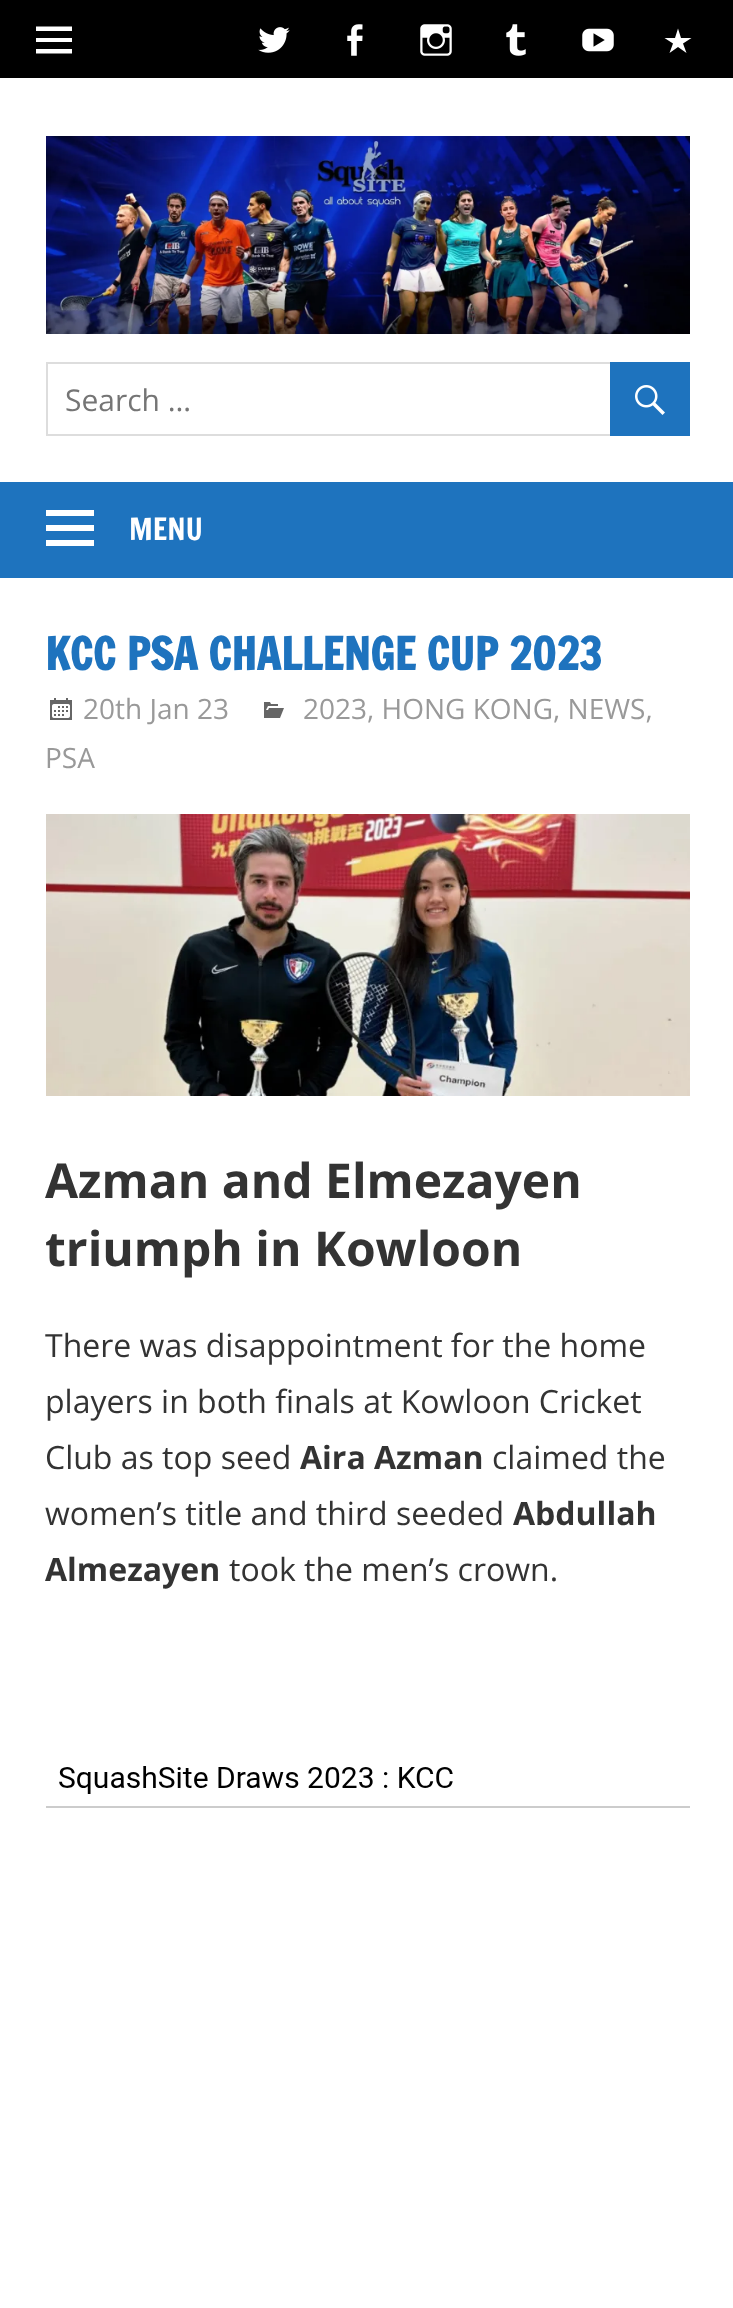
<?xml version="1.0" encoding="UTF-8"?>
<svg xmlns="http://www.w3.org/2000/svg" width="733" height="2308">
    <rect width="100%" height="100%" fill="#FFFFFF"/>
    <rect x="0" y="0" width="733" height="78" fill="#000000"/>
    <path d="M 36 53.5 V 49 H 72 V 53.5 Z M 36 26.5 H 72 V 31 H 36 Z M 36 42 V 38 H 72 V 42 Z" fill="#FFFFFF"/>
    <image x="258" y="27" width="32" height="26" href="img_01.png"/>
    <image x="347" y="24" width="16" height="32" href="img_02.png"/>
    <image x="420" y="24" width="32" height="32" href="img_03.png"/>
    <image x="506" y="24" width="20" height="32" href="img_04.png"/>
    <image x="582" y="28" width="32" height="24" href="img_05.png"/>
    <path d="M 691.5 38 L 683 43.5 L 686.5 53 L 678 47 L 669.5 53 L 673 43.5 L 664.5 38 H 675 L 678 28.5 L 681 38 Z" fill="#FFFFFF"/>
    <image x="46" y="136" width="644" height="198" href="img_06.png"/>
    <rect x="47" y="363" width="642" height="72" fill="none" stroke="#DDDDDD" stroke-width="2"/>
    <text x="65" y="411" font-family="Open Sans" font-size="30" fill="#757575">Search …</text>
    <rect x="610" y="362" width="80" height="74" fill="#1E73BE"/>
    <image x="635" y="385" width="30" height="30" href="img_07.png"/>
    <rect x="0" y="482" width="733" height="96" fill="#1E73BE"/>
    <path d="M 46 546 V 540 H 94 V 546 Z M 46 510 H 94 V 516 H 46 Z M 46 531 V 525 H 94 V 531 Z" fill="#FFFFFF"/>
    <text x="129" y="540" font-family="Francois One" font-size="30" fill="#FFFFFF">MENU</text>
    <text x="45" y="670" font-family="Francois One" font-size="44" font-weight="700" fill="#1E73BE">KCC PSA CHALLENGE CUP 2023</text>
    <image x="50" y="698" width="22" height="22" href="img_08.png"/>
    <text x="83" y="719" font-family="Open Sans" font-size="28" fill="#999999">20th Jan 23</text>
    <image x="264" y="702" width="20" height="16" href="img_09.png"/>
    <text x="303" y="719" font-family="Open Sans" font-size="28" fill="#999999">2023, HONG KONG, NEWS,</text>
    <text x="45" y="768" font-family="Open Sans" font-size="28" fill="#999999">PSA</text>
    <image x="46" y="814" width="644" height="282" href="img_10.png"/>
    <text font-family="Open Sans" font-size="48" font-weight="700" fill="#333333">
        <tspan x="45" y="1198">Azman and Elmezayen</tspan>
        <tspan x="45" y="1266">triumph in Kowloon</tspan>
    </text>
    <text font-family="Open Sans" font-size="32" fill="#333333">
        <tspan x="45" y="1357">There was disappointment for the home</tspan>
        <tspan x="45" y="1413">players in both finals at Kowloon Cricket</tspan>
        <tspan x="45" y="1469">Club as top seed</tspan>
    </text>
    <text x="300" y="1469" font-family="Open Sans" font-size="32" font-weight="700" fill="#333333">Aira Azman</text>
    <text x="492" y="1469" font-family="Open Sans" font-size="32" fill="#333333">claimed the</text>
    <text x="45" y="1525" font-family="Open Sans" font-size="32" fill="#333333">women’s title and third seeded</text>
    <text x="513" y="1525" font-family="Open Sans" font-size="32" font-weight="700" fill="#333333">Abdullah</text>
    <text x="45" y="1581" font-family="Open Sans" font-size="32" font-weight="700" fill="#333333">Almezayen</text>
    <text x="229" y="1581" font-family="Open Sans" font-size="32" fill="#333333">took the men’s crown.</text>
    <image x="46" y="1766" width="644" height="42" href="img_11.png"/>
</svg>
